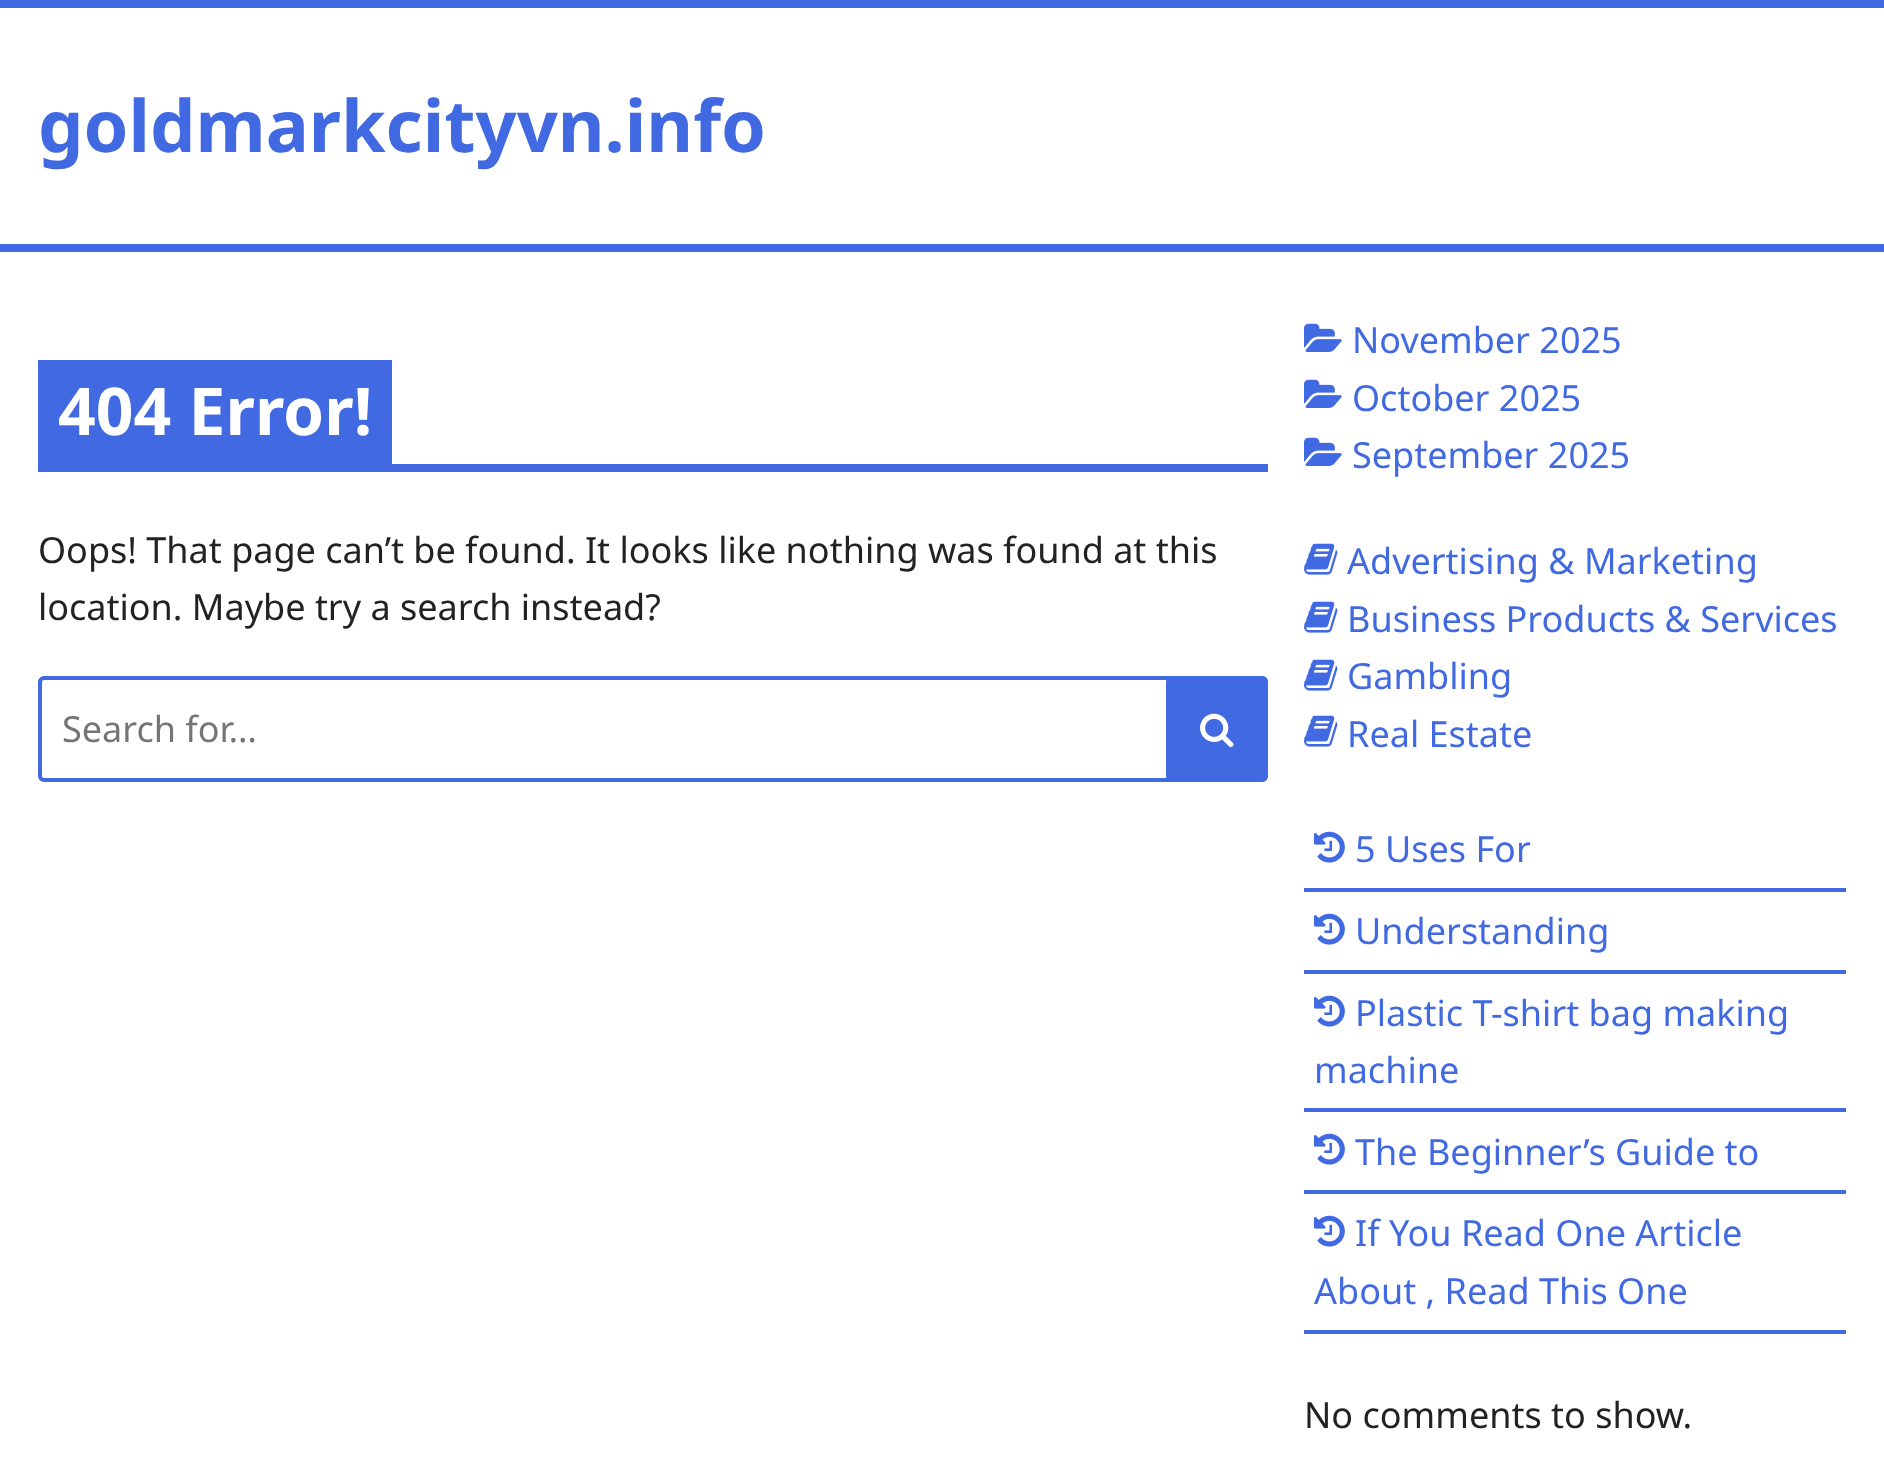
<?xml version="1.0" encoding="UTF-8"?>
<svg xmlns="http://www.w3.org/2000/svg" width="1884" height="1484">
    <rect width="100%" height="100%" fill="#4169E1"/>
    <rect x="0" y="8" width="1884" height="236" fill="#FFFFFF"/>
    <text x="38" y="152" font-family="Noto Sans" font-size="72" font-weight="700" fill="#4169E1">goldmarkcityvn.info</text>
    <rect x="0" y="252" width="1884" height="1232" fill="#FFFFFF"/>
    <rect x="38" y="464" width="1230" height="8" fill="#4169E1"/>
    <rect x="38" y="360" width="354" height="104" fill="#4169E1"/>
    <text x="58" y="435" font-family="Noto Sans" font-size="66" font-weight="700" fill="#FFFFFF">404 Error!</text>
    <text font-family="Noto Sans" font-size="36" fill="#222222">
        <tspan x="38" y="563">Oops! That page can’t be found. It looks like nothing was found at this</tspan>
        <tspan x="38" y="620">location. Maybe try a search instead?</tspan>
    </text>
    <rect x="40" y="678" width="1226" height="102" rx="4" fill="none" stroke="#4169E1" stroke-width="4"/>
    <text x="62" y="742" font-family="Noto Sans" font-size="36" fill="#757575">Search for…</text>
    <rect x="1168" y="678" width="98" height="102" rx="4" fill="#4169E1" stroke="#4169E1" stroke-width="4"/>
    <image x="1200" y="713" width="34" height="35" href="img_01.png"/>
    <image x="1304" y="323" width="38" height="29" href="img_02.png"/>
    <text x="1352" y="353" font-family="Noto Sans" font-size="36" fill="#4169E1">November 2025</text>
    <image x="1304" y="379" width="38" height="29" href="img_02.png"/>
    <text x="1352" y="411" font-family="Noto Sans" font-size="36" fill="#4169E1">October 2025</text>
    <image x="1304" y="437" width="38" height="29" href="img_02.png"/>
    <text x="1352" y="468" font-family="Noto Sans" font-size="36" fill="#4169E1">September 2025</text>
    <image x="1304" y="543" width="34" height="32" href="img_03.png"/>
    <text x="1347" y="574" font-family="Noto Sans" font-size="36" fill="#4169E1">Advertising &amp; Marketing</text>
    <image x="1304" y="601" width="34" height="32" href="img_03.png"/>
    <text x="1347" y="632" font-family="Noto Sans" font-size="36" fill="#4169E1">Business Products &amp; Services</text>
    <image x="1304" y="659" width="34" height="32" href="img_03.png"/>
    <text x="1347" y="689" font-family="Noto Sans" font-size="36" fill="#4169E1">Gambling</text>
    <image x="1304" y="715" width="34" height="32" href="img_03.png"/>
    <text x="1347" y="747" font-family="Noto Sans" font-size="36" fill="#4169E1">Real Estate</text>
    <rect x="1304" y="888" width="542" height="4" fill="#4169E1"/>
    <image x="1314" y="831" width="31" height="32" href="img_04.png"/>
    <text x="1355" y="862" font-family="Noto Sans" font-size="36" fill="#4169E1">5 Uses For</text>
    <rect x="1304" y="970" width="542" height="4" fill="#4169E1"/>
    <image x="1314" y="913" width="31" height="32" href="img_04.png"/>
    <text x="1355" y="944" font-family="Noto Sans" font-size="36" fill="#4169E1">Understanding</text>
    <rect x="1304" y="1108" width="542" height="4" fill="#4169E1"/>
    <image x="1314" y="995" width="31" height="32" href="img_04.png"/>
    <text x="1355" y="1026" font-family="Noto Sans" font-size="36" fill="#4169E1">Plastic T-shirt bag making</text>
    <text x="1314" y="1083" font-family="Noto Sans" font-size="36" fill="#4169E1">machine</text>
    <rect x="1304" y="1190" width="542" height="4" fill="#4169E1"/>
    <image x="1314" y="1133" width="31" height="32" href="img_04.png"/>
    <text x="1355" y="1165" font-family="Noto Sans" font-size="36" fill="#4169E1">The Beginner’s Guide to</text>
    <rect x="1304" y="1330" width="542" height="4" fill="#4169E1"/>
    <image x="1314" y="1215" width="31" height="32" href="img_04.png"/>
    <text x="1355" y="1246" font-family="Noto Sans" font-size="36" fill="#4169E1">If You Read One Article</text>
    <text x="1314" y="1304" font-family="Noto Sans" font-size="36" fill="#4169E1">About , Read This One</text>
    <text x="1304" y="1428" font-family="Noto Sans" font-size="36" fill="#222222">No comments to show.</text>
</svg>
